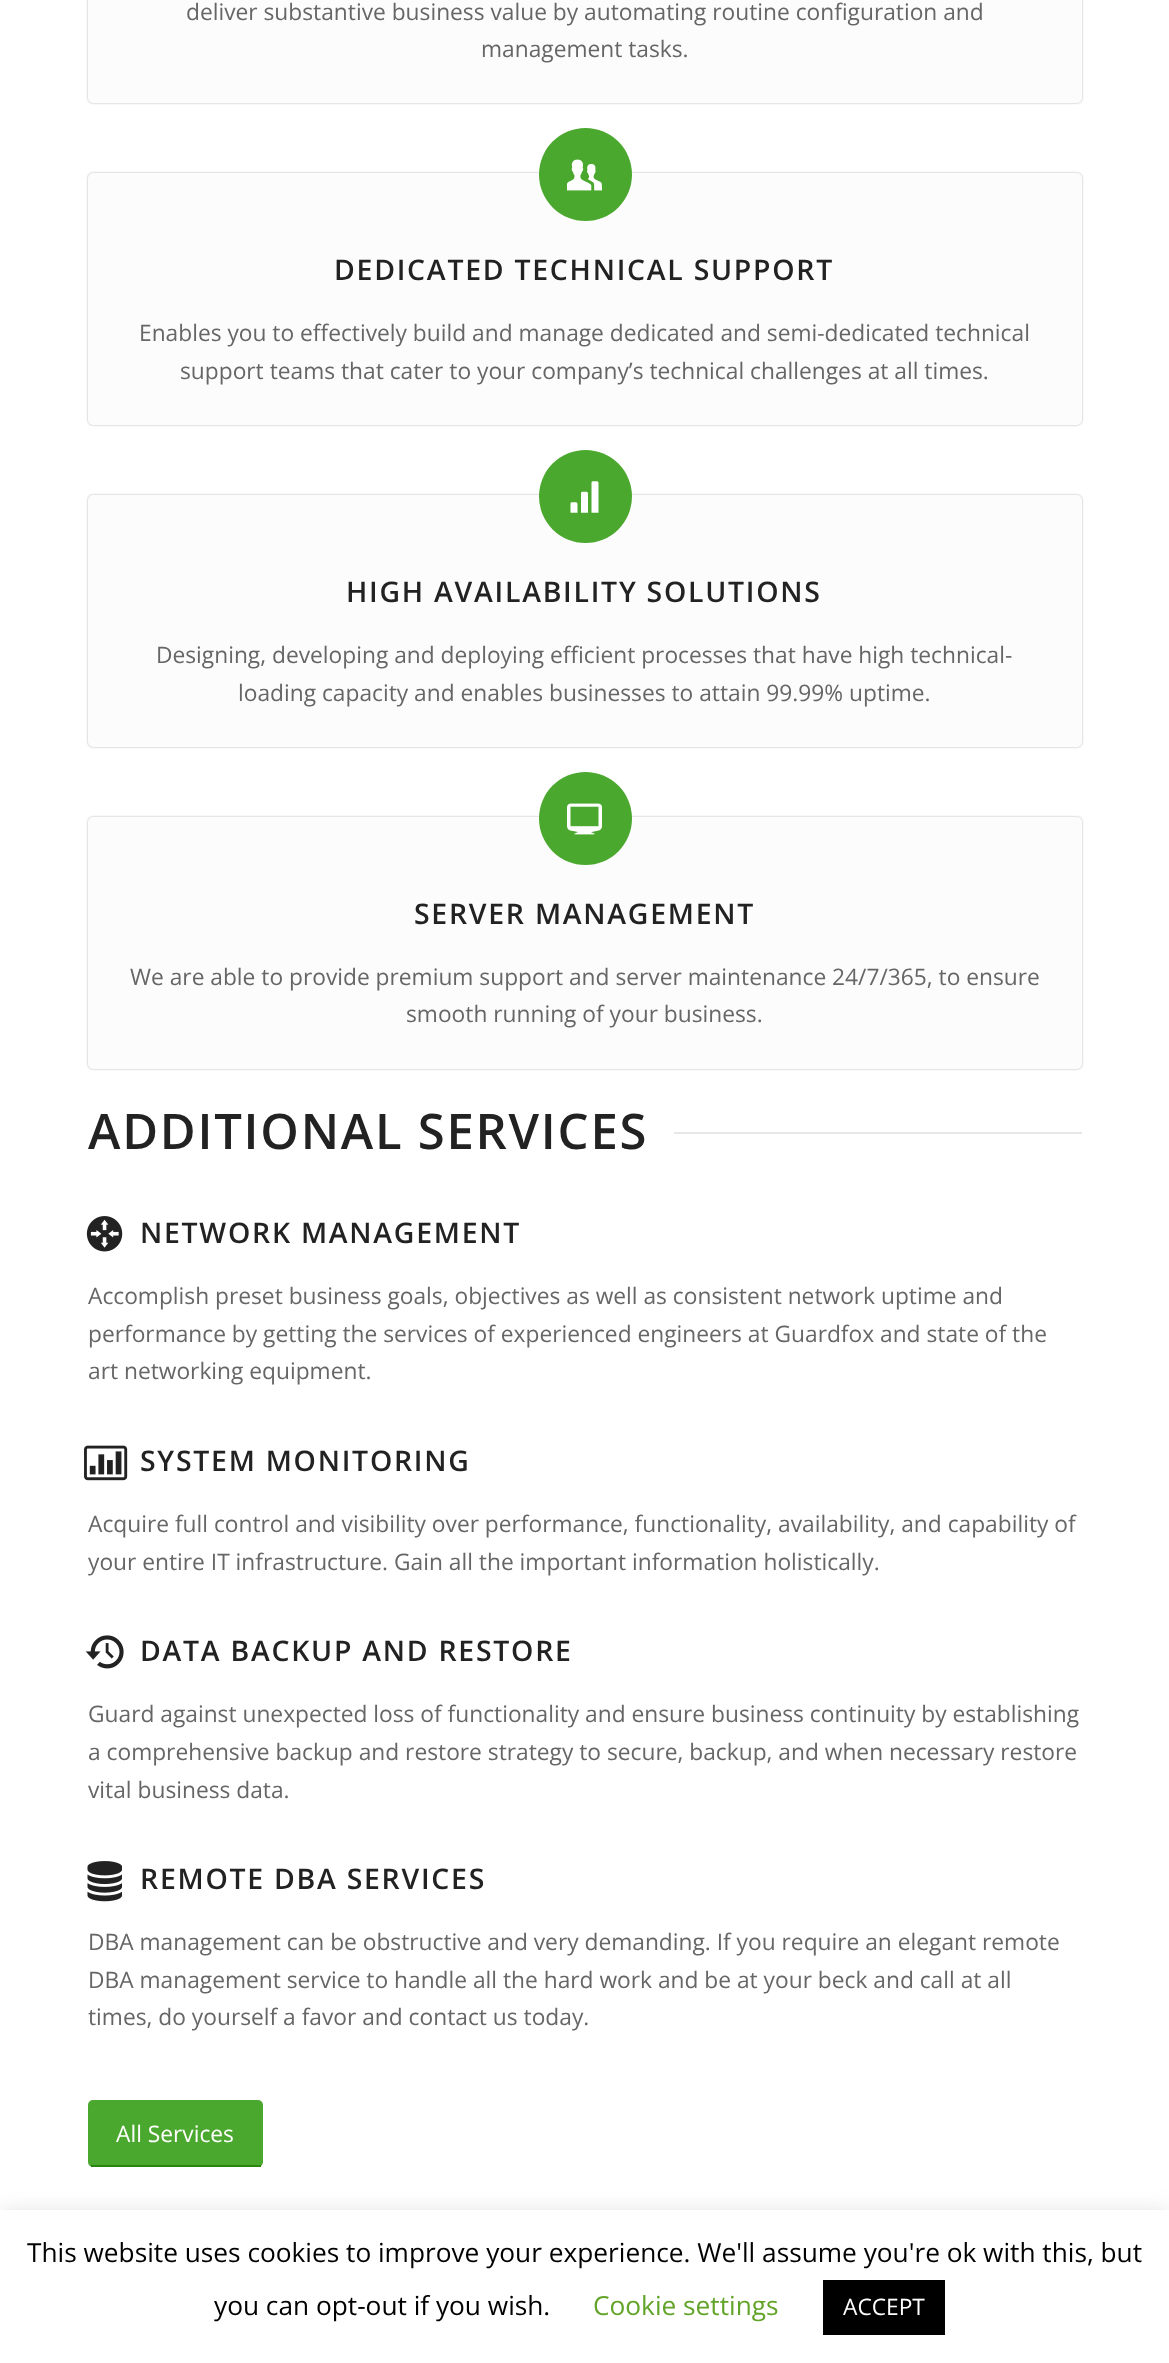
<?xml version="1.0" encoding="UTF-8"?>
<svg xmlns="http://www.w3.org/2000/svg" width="1169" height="2363">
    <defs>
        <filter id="blur1" x="-50%" y="-200%" width="200%" height="500%"><feGaussianBlur stdDeviation="1"/></filter>
        <filter id="blur2" x="-50%" y="-200%" width="200%" height="500%"><feGaussianBlur stdDeviation="9"/></filter>
    </defs>
    <rect width="100%" height="100%" fill="#FFFFFF"/>
    <rect x="88" y="-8" width="994" height="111" rx="5" fill="#000000" fill-opacity="0.3" filter="url(#blur1)"/>
    <rect x="88" y="-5" width="994" height="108" rx="5" fill="#FCFCFC"/>
    <text x="186" y="20" font-family="Open Sans" font-size="22.75" fill="#666666">deliver substantive business value by automating routine configuration and</text>
    <text x="481" y="57" font-family="Open Sans" font-size="22.75" fill="#666666">management tasks.</text>
    <rect x="88" y="173" width="994" height="252" rx="5" fill="#000000" fill-opacity="0.3" filter="url(#blur1)"/>
    <rect x="88" y="173" width="994" height="252" rx="5" fill="#FCFCFC"/>
    <circle cx="585.5" cy="174.5" r="46.5" fill="#4BA82E"/>
    <image x="567" y="159" width="35" height="32" href="img_01.png"/>
    <text x="334" y="280" font-family="Open Sans" font-size="28.4" font-weight="600" letter-spacing="1.75" fill="#222222">DEDICATED TECHNICAL SUPPORT</text>
    <text x="139" y="341" font-family="Open Sans" font-size="22.75" fill="#666666">Enables you to effectively build and manage dedicated and semi-dedicated technical</text>
    <text x="180" y="379" font-family="Open Sans" font-size="22.75" fill="#666666">support teams that cater to your company’s technical challenges at all times.</text>
    <rect x="88" y="495" width="994" height="252" rx="5" fill="#000000" fill-opacity="0.3" filter="url(#blur1)"/>
    <rect x="88" y="495" width="994" height="252" rx="5" fill="#FCFCFC"/>
    <circle cx="585.5" cy="496.5" r="46.5" fill="#4BA82E"/>
    <image x="570" y="481" width="29" height="32" href="img_02.png"/>
    <text x="346" y="602" font-family="Open Sans" font-size="28.4" font-weight="600" letter-spacing="1.75" fill="#222222">HIGH AVAILABILITY SOLUTIONS</text>
    <text x="156" y="663" font-family="Open Sans" font-size="22.75" fill="#666666">Designing, developing and deploying efficient processes that have high technical-</text>
    <text x="238" y="701" font-family="Open Sans" font-size="22.75" fill="#666666">loading capacity and enables businesses to attain 99.99% uptime.</text>
    <rect x="88" y="817" width="994" height="252" rx="5" fill="#000000" fill-opacity="0.3" filter="url(#blur1)"/>
    <rect x="88" y="817" width="994" height="252" rx="5" fill="#FCFCFC"/>
    <circle cx="585.5" cy="818.5" r="46.5" fill="#4BA82E"/>
    <image x="567" y="803" width="35" height="32" href="img_03.png"/>
    <text x="414" y="924" font-family="Open Sans" font-size="28.4" font-weight="600" letter-spacing="1.75" fill="#222222">SERVER MANAGEMENT</text>
    <text x="130" y="985" font-family="Open Sans" font-size="22.75" fill="#666666">We are able to provide premium support and server maintenance 24/7/365, to ensure</text>
    <text x="406" y="1022" font-family="Open Sans" font-size="22.75" fill="#666666">smooth running of your business.</text>
    <text x="88" y="1149" font-family="Open Sans" font-size="49" font-weight="600" letter-spacing="1.75" fill="#222222">ADDITIONAL SERVICES</text>
    <rect x="674" y="1132" width="408" height="2" fill="#E8E8E8"/>
    <image x="86" y="1216" width="37" height="36" href="img_04.png"/>
    <text x="140" y="1243" font-family="Open Sans" font-size="28.4" font-weight="600" letter-spacing="1.75" fill="#222222">NETWORK MANAGEMENT</text>
    <text font-family="Open Sans" font-size="22.75" fill="#666666">
        <tspan x="88" y="1304">Accomplish preset business goals, objectives as well as consistent network uptime and</tspan>
        <tspan x="88" y="1342">performance by getting the services of experienced engineers at Guardfox and state of the</tspan>
        <tspan x="88" y="1379">art networking equipment.</tspan>
    </text>
    <image x="84" y="1445" width="44" height="36" href="img_05.png"/>
    <text x="140" y="1471" font-family="Open Sans" font-size="28.4" font-weight="600" letter-spacing="1.75" fill="#222222">SYSTEM MONITORING</text>
    <text font-family="Open Sans" font-size="22.75" fill="#666666">
        <tspan x="88" y="1532">Acquire full control and visibility over performance, functionality, availability, and capability of</tspan>
        <tspan x="88" y="1570">your entire IT infrastructure. Gain all the important information holistically.</tspan>
    </text>
    <image x="85" y="1635" width="39" height="34" href="img_06.png"/>
    <text x="140" y="1661" font-family="Open Sans" font-size="28.4" font-weight="600" letter-spacing="1.75" fill="#222222">DATA BACKUP AND RESTORE</text>
    <text font-family="Open Sans" font-size="22.75" fill="#666666">
        <tspan x="88" y="1722">Guard against unexpected loss of functionality and ensure business continuity by establishing</tspan>
        <tspan x="88" y="1760">a comprehensive backup and restore strategy to secure, backup, and when necessary restore</tspan>
        <tspan x="88" y="1798">vital business data.</tspan>
    </text>
    <image x="87" y="1861" width="35" height="41" href="img_07.png"/>
    <text x="140" y="1889" font-family="Open Sans" font-size="28.4" font-weight="600" letter-spacing="1.75" fill="#222222">REMOTE DBA SERVICES</text>
    <text font-family="Open Sans" font-size="22.75" fill="#666666">
        <tspan x="88" y="1950">DBA management can be obstructive and very demanding. If you require an elegant remote</tspan>
        <tspan x="88" y="1988">DBA management service to handle all the hard work and be at your beck and call at all</tspan>
        <tspan x="88" y="2025">times, do yourself a favor and contact us today.</tspan>
    </text>
    <rect x="88" y="2100" width="175" height="67" rx="5" fill="#4BA82E"/>
    <rect x="91" y="2165" width="170" height="2" fill="#29860C"/>
    <text x="116" y="2142" font-family="Open Sans" font-size="22.75" fill="#FFFFFF">All Services</text>
    <rect x="0" y="2209" width="1169" height="154" fill="#ACABAB" fill-opacity="0.3" filter="url(#blur2)"/>
    <rect x="0" y="2210" width="1169" height="153" fill="#FFFFFF"/>
    <text x="27" y="2262" font-family="Open Sans" font-size="26.25" fill="#000000">This website uses cookies to improve your experience. We'll assume you're ok with this, but</text>
    <text x="214" y="2315" font-family="Open Sans" font-size="26.25" fill="#000000">you can opt-out if you wish.</text>
    <text x="593" y="2315" font-family="Open Sans" font-size="26.25" fill="#62A329">Cookie settings</text>
    <rect x="823" y="2280" width="122" height="55" fill="#000000"/>
    <text x="843" y="2315" font-family="Open Sans" font-size="22.75" fill="#FFFFFF">ACCEPT</text>
</svg>
